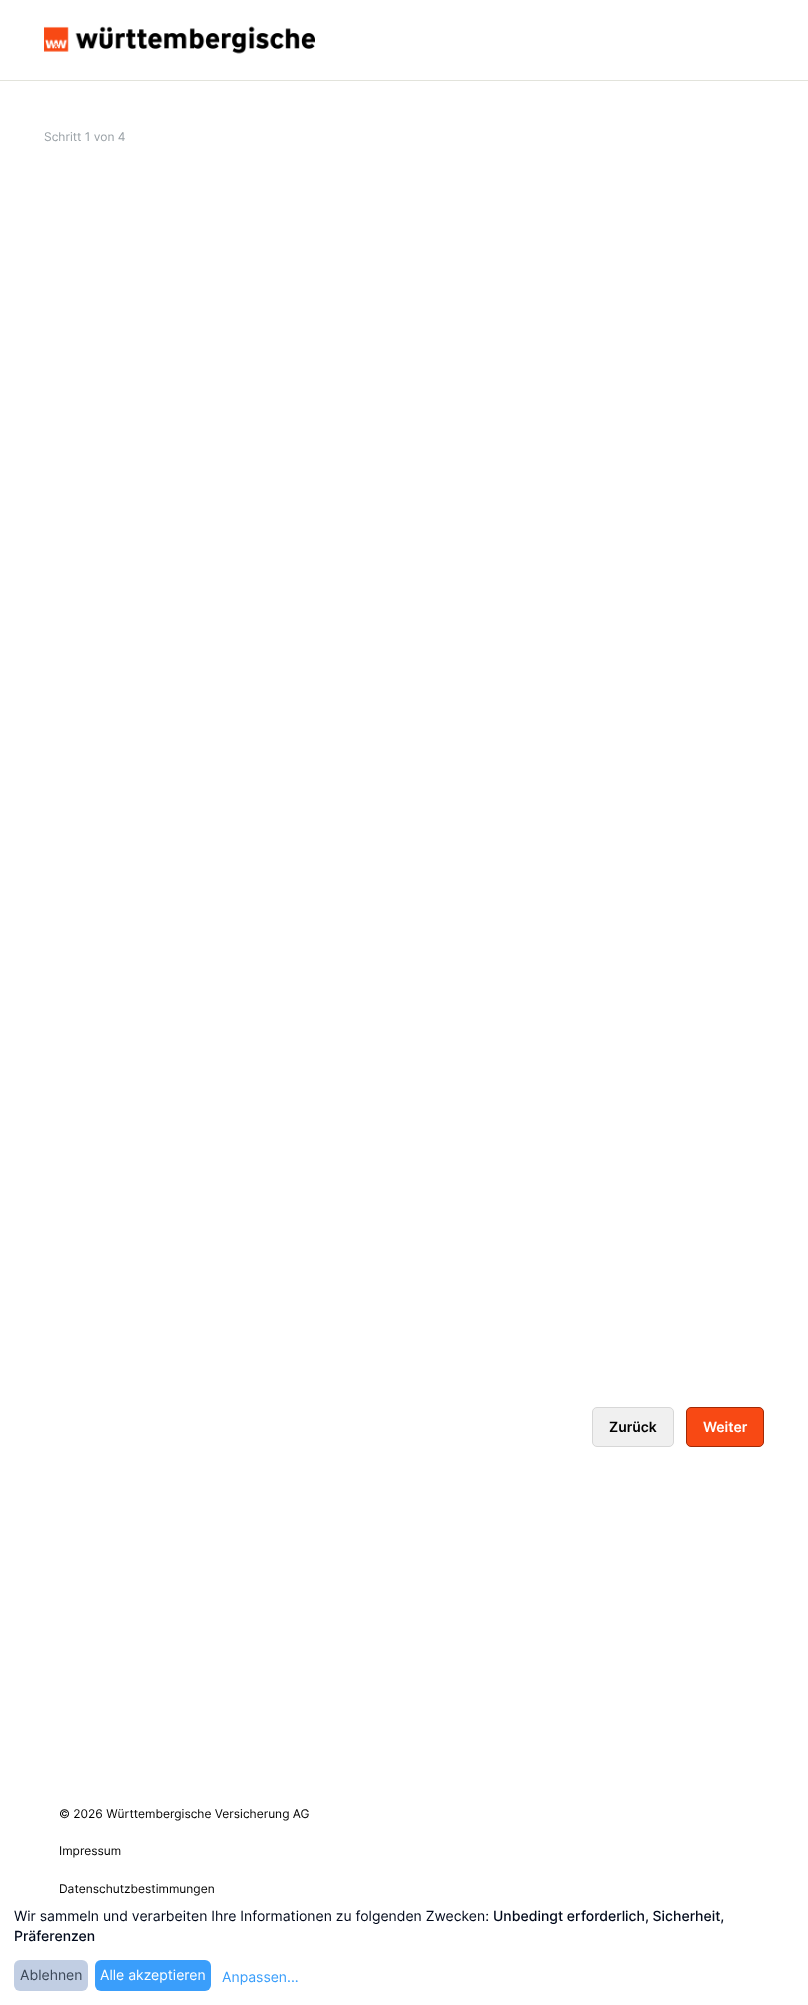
<?xml version="1.0" encoding="UTF-8"?>
<svg xmlns="http://www.w3.org/2000/svg" width="808" height="2005">
    <rect width="100%" height="100%" fill="#FFFFFF"/>
    <rect x="0" y="80" width="808" height="1" fill="#E2E3DB"/>
    <image x="44" y="26" width="271" height="28" href="img_01.png"/>
    <text x="44" y="141" font-family="Inter" font-size="12" fill="#9AA1A6">Schritt 1 von 4</text>
    <rect x="592.5" y="1407.5" width="81" height="39" rx="4.5" fill="#F0F0F0" stroke="#D7D7D7"/>
    <text x="609" y="1432" font-family="Inter" font-size="14" font-weight="600" fill="#000000">Zurück</text>
    <rect x="686.5" y="1407.5" width="77" height="39" rx="4.5" fill="#F84914" stroke="#A12905"/>
    <text x="703" y="1432" font-family="Inter" font-size="14" font-weight="600" fill="#FFFFFF">Weiter</text>
    <text x="59" y="1818" font-family="Inter" font-size="12" fill="#000000">© 2026 Württembergische Versicherung AG</text>
    <text x="59" y="1855" font-family="Inter" font-size="12" fill="#000000">Impressum</text>
    <text x="59" y="1893" font-family="Inter" font-size="12" fill="#000000">Datenschutzbestimmungen</text>
    <text x="14" y="1921" font-family="Inter" font-size="14" fill="#01091B">Wir sammeln und verarbeiten Ihre Informationen zu folgenden Zwecken:</text>
    <text x="493" y="1921" font-family="Inter" font-size="14" font-weight="500" fill="#01091B">Unbedingt erforderlich, Sicherheit,</text>
    <text x="14" y="1941" font-family="Inter" font-size="14" font-weight="500" fill="#01091B">Präferenzen</text>
    <rect x="14" y="1960" width="74" height="31" rx="6" fill="#C1CEE3"/>
    <text x="20" y="1980" font-family="Inter" font-size="14" fill="#3C4858">Ablehnen</text>
    <rect x="95" y="1960" width="116" height="31" rx="6" fill="#3A9EFB"/>
    <text x="100" y="1980" font-family="Inter" font-size="14" fill="#FFFFFF">Alle akzeptieren</text>
    <text x="222" y="1982" font-family="Inter" font-size="14" fill="#3A9EFB">Anpassen...</text>
</svg>
